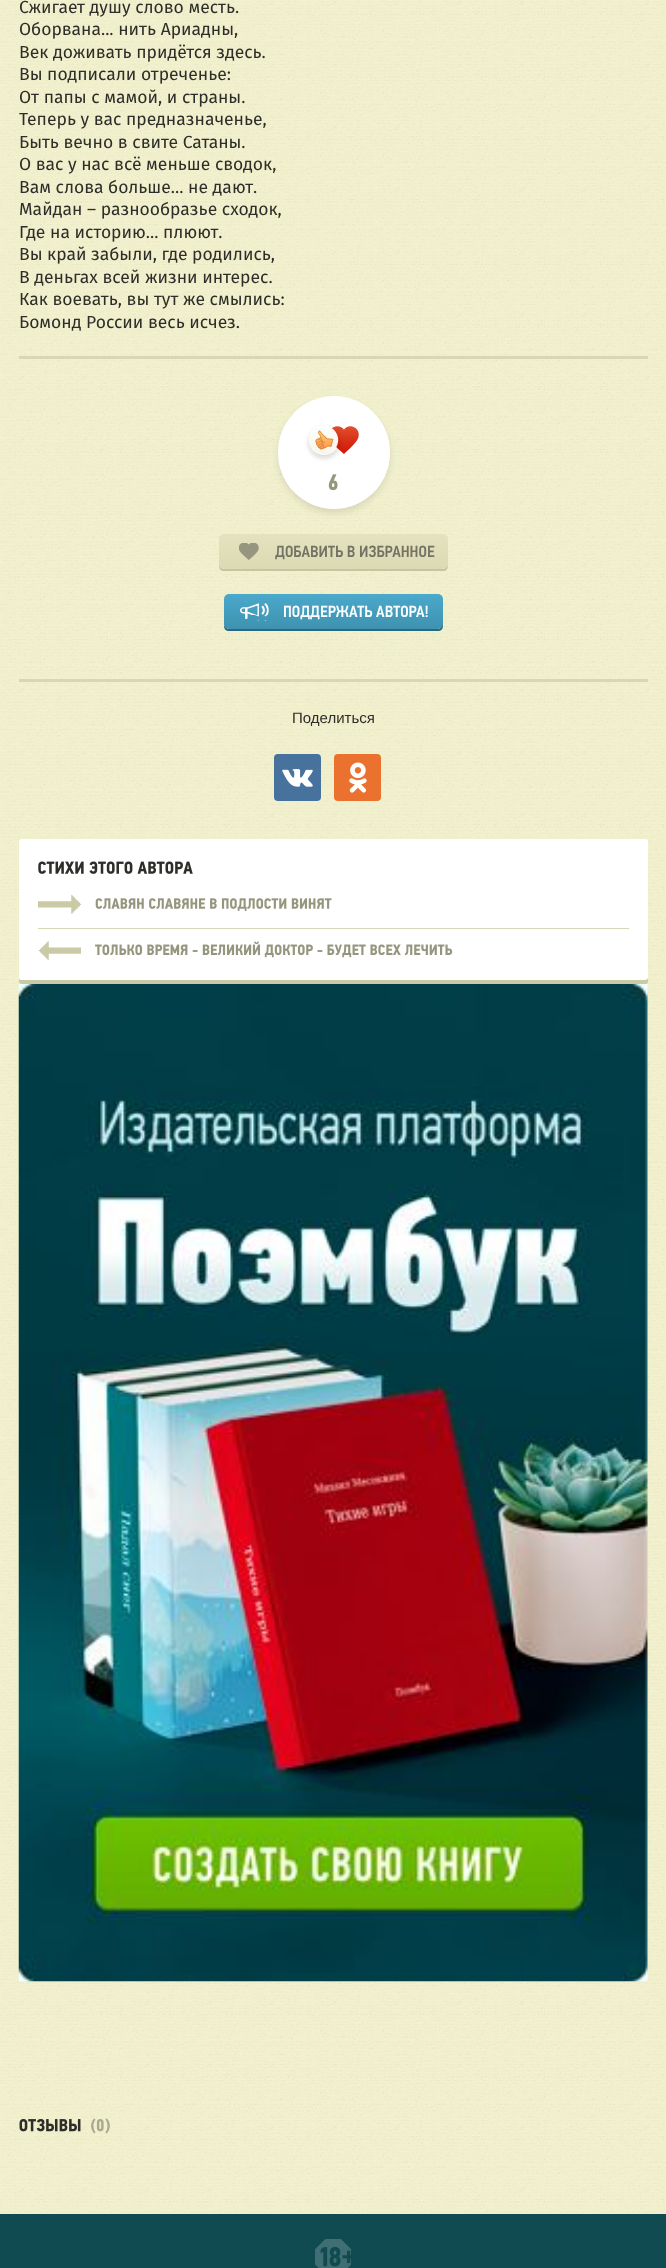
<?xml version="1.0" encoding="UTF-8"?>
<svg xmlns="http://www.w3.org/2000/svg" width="666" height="2268">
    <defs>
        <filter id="blur1" x="-50%" y="-200%" width="200%" height="500%"><feGaussianBlur stdDeviation="3"/></filter>
        <linearGradient id="g1" gradientUnits="userSpaceOnUse" x1="359" y1="454" x2="359" y2="426"><stop offset="0" stop-color="#CF1504"/><stop offset="1" stop-color="#E24E2D"/></linearGradient>
        <clipPath id="clip1"><path d="M 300 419 H 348 V 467 H 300 Z M 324 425 C 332.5 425 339 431.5 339 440 C 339 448.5 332.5 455 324 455 C 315.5 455 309 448.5 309 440 C 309 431.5 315.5 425 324 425 Z" clip-rule="evenodd"/></clipPath>
        <filter id="blur2" x="-50%" y="-200%" width="200%" height="500%"><feGaussianBlur stdDeviation="2.5"/></filter>
        <linearGradient id="g2" gradientUnits="userSpaceOnUse" x1="333" y1="534" x2="333" y2="569"><stop offset="0" stop-color="#E4E3BF"/><stop offset="1" stop-color="#DBDAB3"/></linearGradient>
        <linearGradient id="g3" gradientUnits="userSpaceOnUse" x1="333" y1="594" x2="333" y2="629"><stop offset="0" stop-color="#4BA9CB"/><stop offset="1" stop-color="#3E92B0"/></linearGradient>
    </defs>
    <rect width="100%" height="100%" fill="#FFFFFF"/>
    <image x="0" y="0" width="666" height="2214" href="img_01.png"/>
    <text font-family="Fira Sans" font-size="17.5" fill="#2D2D29">
        <tspan x="19" y="13">Сжигает душу слово месть.</tspan>
        <tspan x="19" y="35">Оборвана... нить Ариадны,</tspan>
        <tspan x="19" y="58">Век доживать придётся здесь.</tspan>
        <tspan x="19" y="80">Вы подписали отреченье:</tspan>
        <tspan x="19" y="103">От папы с мамой, и страны.</tspan>
        <tspan x="19" y="125">Теперь у вас предназначенье,</tspan>
        <tspan x="19" y="148">Быть вечно в свите Сатаны.</tspan>
        <tspan x="19" y="170">О вас у нас всё меньше сводок,</tspan>
        <tspan x="19" y="193">Вам слова больше... не дают.</tspan>
        <tspan x="19" y="215">Майдан – разнообразье сходок,</tspan>
        <tspan x="19" y="238">Где на историю... плюют.</tspan>
        <tspan x="19" y="260">Вы край забыли, где родились,</tspan>
        <tspan x="19" y="283">В деньгах всей жизни интерес.</tspan>
        <tspan x="19" y="305">Как воевать, вы тут же смылись:</tspan>
        <tspan x="19" y="328">Бомонд России весь исчез.</tspan>
    </text>
    <rect x="19" y="356" width="629" height="3" fill="#D8D7B5"/>
    <rect x="278" y="400" width="112" height="113" rx="56" fill="#000000" fill-opacity="0.1" filter="url(#blur1)"/>
    <rect x="278" y="396" width="112" height="113" rx="56" fill="#FFFFFF"/>
    <path d="M 344 454 C 339 449.5 332.5 444.5 329.5 438.5 C 325.5 429 337.5 422 344 429.5 C 350 422 362 429 358 438.5 C 355 444.5 348.5 449.5 344 454 Z" fill="url(#g1)" fill-rule="evenodd"/>
    <g clip-path="url(#clip1)">
        <rect x="309" y="428" width="30" height="30" rx="15" fill="#2D2D29" fill-opacity="0.2" filter="url(#blur2)"/>
    </g>
    <image x="309" y="428" width="30" height="27" href="img_02.png"/>
    <image x="328" y="474" width="10" height="17" href="img_03.png"/>
    <path d="M 219 565 V 566 C 219 569 221 571 224 571 H 443 C 446 571 448 569 448 566 V 541 V 539 V 564 C 448 567 445 569 442 569 H 224 C 222 569 220 567 219 565 Z" fill="#C6C5A3"/>
    <rect x="219" y="534" width="229" height="35" rx="5" fill="url(#g2)"/>
    <image x="239" y="543" width="20" height="17" href="img_04.png"/>
    <text x="275" y="557" font-family="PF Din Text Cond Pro" font-size="16.25" font-weight="500" fill="#737365">ДОБАВИТЬ В ИЗБРАННОЕ</text>
    <path d="M 224 625 V 626 C 224 629 226 631 229 631 H 438 C 441 631 443 629 443 626 V 601 L 442 599 V 624 C 442 627 440 629 438 629 H 229 C 227 629 225 627 224 625 Z" fill="#286981"/>
    <rect x="224" y="594" width="219" height="35" rx="5" fill="url(#g3)"/>
    <image x="240" y="601" width="29" height="20" href="img_05.png"/>
    <text x="283" y="617" font-family="PF Din Text Cond Pro" font-size="16.25" font-weight="500" fill="#FFFFFF">ПОДДЕРЖАТЬ АВТОРА!</text>
    <rect x="19" y="679" width="629" height="3" fill="#D8D7B5"/>
    <text x="292" y="723" font-family="Liberation Sans" font-size="15" fill="#2D2D29">Поделиться</text>
    <rect x="274" y="754" width="47" height="47" rx="4" fill="#48729E"/>
    <image x="282" y="769" width="31" height="18" href="img_06.png"/>
    <rect x="334" y="754" width="47" height="47" rx="4" fill="#EB722E"/>
    <image x="349" y="762" width="18" height="31" href="img_07.png"/>
    <image x="18" y="983" width="630" height="999" href="img_13.png"/>
    <rect x="19" y="839" width="629" height="145" rx="2.5" fill="#FFFFFF"/>
    <path d="M 19 978 V 982 C 19 983 20 984 22 984 H 646 C 647 984 648 983 648 982 V 978 C 648 979 646 980 645 980 H 21 C 20 980 19 979 19 978 Z" fill="#CACAA7"/>
    <image x="38" y="861" width="155" height="13" href="img_08.png"/>
    <image x="38" y="895" width="43" height="19" href="img_09.png"/>
    <image x="95" y="898" width="237" height="13" href="img_10.png"/>
    <rect x="38" y="928" width="591" height="1" fill="#D8D7B5"/>
    <image x="38" y="941" width="43" height="19" href="img_11.png"/>
    <image x="95" y="941" width="358" height="17" href="img_12.png"/>
    <image x="19" y="2119" width="62" height="13" href="img_14.png"/>
    <image x="91" y="2118" width="19" height="16" href="img_15.png"/>
    <rect x="0" y="2214" width="666" height="54" fill="#104B52"/>
    <image x="315" y="2239" width="36" height="29" href="img_16.png"/>
</svg>
